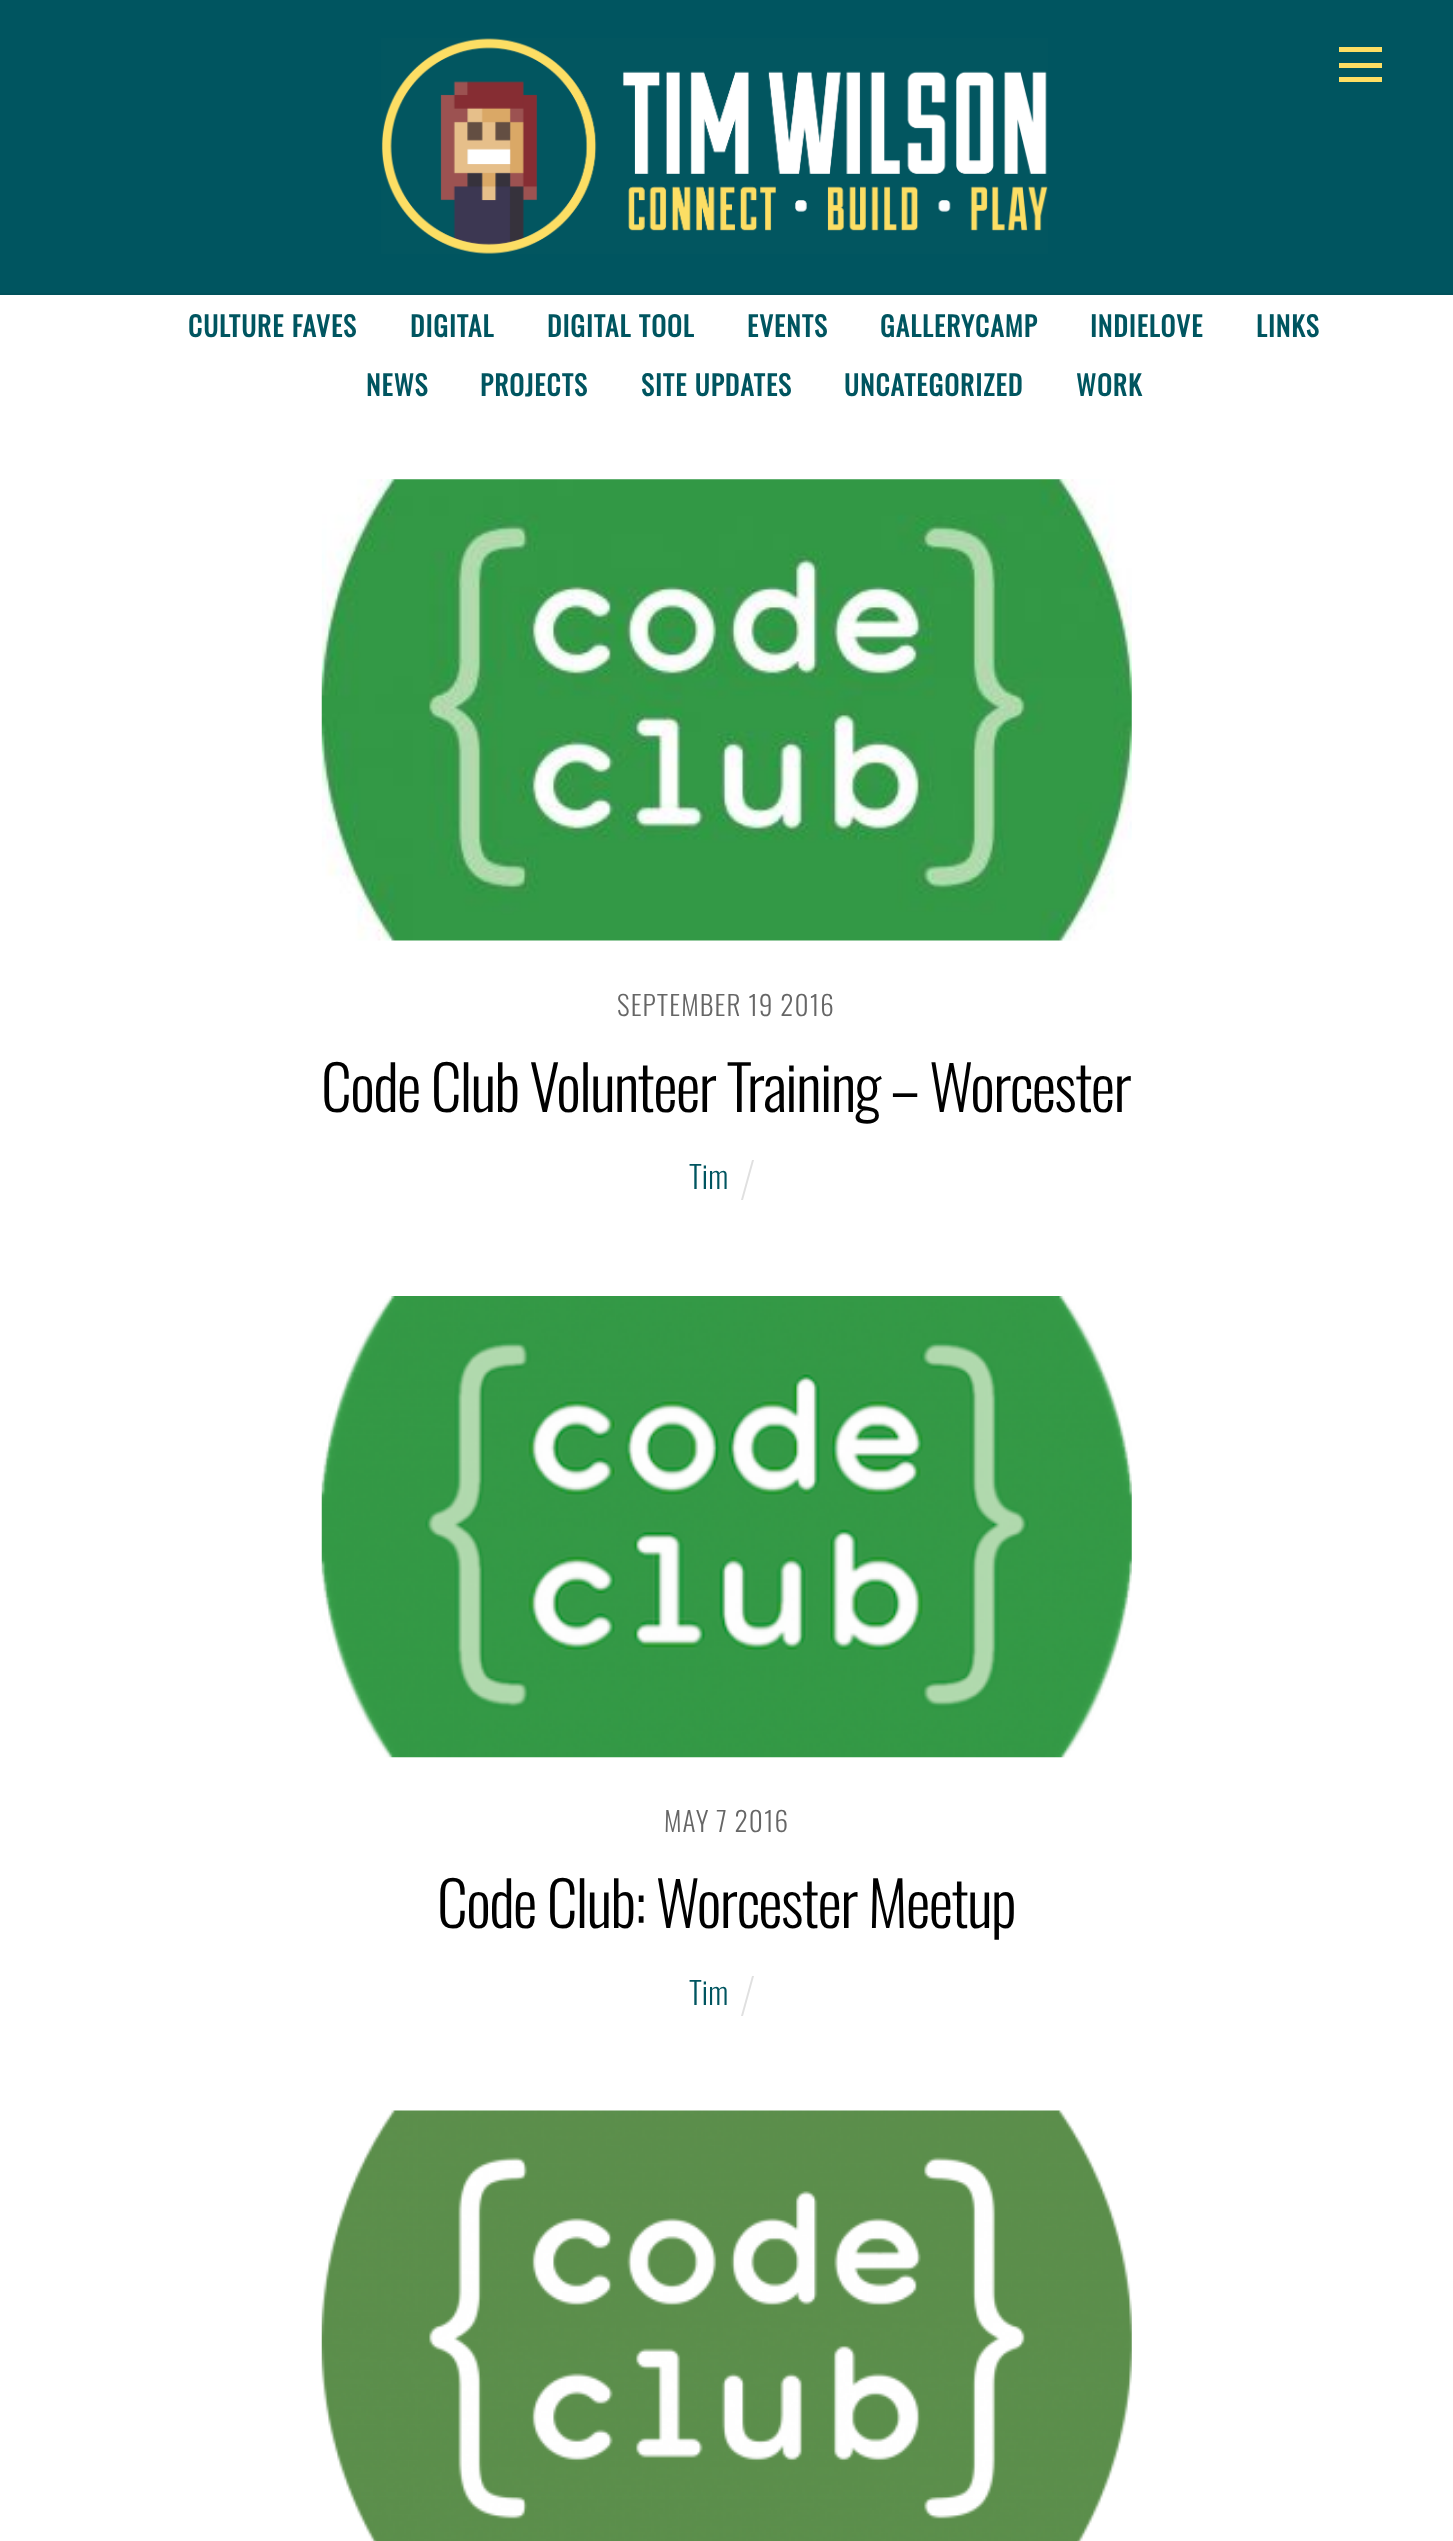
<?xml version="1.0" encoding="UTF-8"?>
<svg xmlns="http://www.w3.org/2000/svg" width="1453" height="2541">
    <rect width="100%" height="100%" fill="#FFFFFF"/>
    <rect x="0" y="0" width="1453" height="293" fill="#005560"/>
    <rect x="0" y="293" width="1453" height="2" fill="#00515B"/>
    <image x="381" y="38" width="667" height="216" href="img_01.png"/>
    <rect x="1339" y="77" width="43" height="5" fill="#FEDE63"/>
    <rect x="1339" y="47" width="43" height="5" fill="#FEDE63"/>
    <rect x="1339" y="63" width="43" height="5" fill="#FEDE63"/>
    <text x="188" y="337" font-family="Oswald" font-size="27.25" font-weight="700" letter-spacing="1.1" fill="#005560">CULTURE FAVES</text>
    <text x="410" y="337" font-family="Oswald" font-size="27.25" font-weight="700" letter-spacing="1.1" fill="#005560">DIGITAL</text>
    <text x="547" y="337" font-family="Oswald" font-size="27.25" font-weight="700" letter-spacing="1.1" fill="#005560">DIGITAL TOOL</text>
    <text x="747" y="337" font-family="Oswald" font-size="27.25" font-weight="700" letter-spacing="1.1" fill="#005560">EVENTS</text>
    <text x="880" y="337" font-family="Oswald" font-size="27.25" font-weight="700" letter-spacing="1.1" fill="#005560">GALLERYCAMP</text>
    <text x="1090" y="337" font-family="Oswald" font-size="27.25" font-weight="700" letter-spacing="1.1" fill="#005560">INDIELOVE</text>
    <text x="1256" y="337" font-family="Oswald" font-size="27.25" font-weight="700" letter-spacing="1.1" fill="#005560">LINKS</text>
    <text x="366" y="396" font-family="Oswald" font-size="27.25" font-weight="700" letter-spacing="1.1" fill="#005560">NEWS</text>
    <text x="480" y="396" font-family="Oswald" font-size="27.25" font-weight="700" letter-spacing="1.1" fill="#005560">PROJECTS</text>
    <text x="641" y="396" font-family="Oswald" font-size="27.25" font-weight="700" letter-spacing="1.1" fill="#005560">SITE UPDATES</text>
    <text x="844" y="396" font-family="Oswald" font-size="27.25" font-weight="700" letter-spacing="1.1" fill="#005560">UNCATEGORIZED</text>
    <text x="1076" y="396" font-family="Oswald" font-size="27.25" font-weight="700" letter-spacing="1.1" fill="#005560">WORK</text>
    <image x="321" y="479" width="811" height="462" href="img_02.png"/>
    <text x="617" y="1016" font-family="Oswald" font-size="27.25" font-weight="300" letter-spacing="1.1" fill="#666666">SEPTEMBER 19 2016</text>
    <text x="321" y="1112" font-family="Oswald" font-size="61.5" font-weight="300" letter-spacing="-1.55" fill="#000000">Code Club Volunteer Training – Worcester</text>
    <text x="689" y="1189" font-family="Oswald" font-size="31" font-weight="300" fill="#005560">Tim</text>
    <path d="M 752 1160 H 754 L 743 1200 H 741 Z" fill="#E0E0E0"/>
    <image x="321" y="1296" width="811" height="462" href="img_03.png"/>
    <text x="664" y="1832" font-family="Oswald" font-size="27.25" font-weight="300" letter-spacing="1.1" fill="#666666">MAY 7 2016</text>
    <text x="437" y="1928" font-family="Oswald" font-size="61.5" font-weight="300" letter-spacing="-1.55" fill="#000000">Code Club: Worcester Meetup</text>
    <text x="689" y="2005" font-family="Oswald" font-size="31" font-weight="300" fill="#005560">Tim</text>
    <path d="M 752 1976 H 754 L 743 2016 H 741 Z" fill="#E0E0E0"/>
    <image x="321" y="2110" width="811" height="431" href="img_04.png"/>
</svg>
